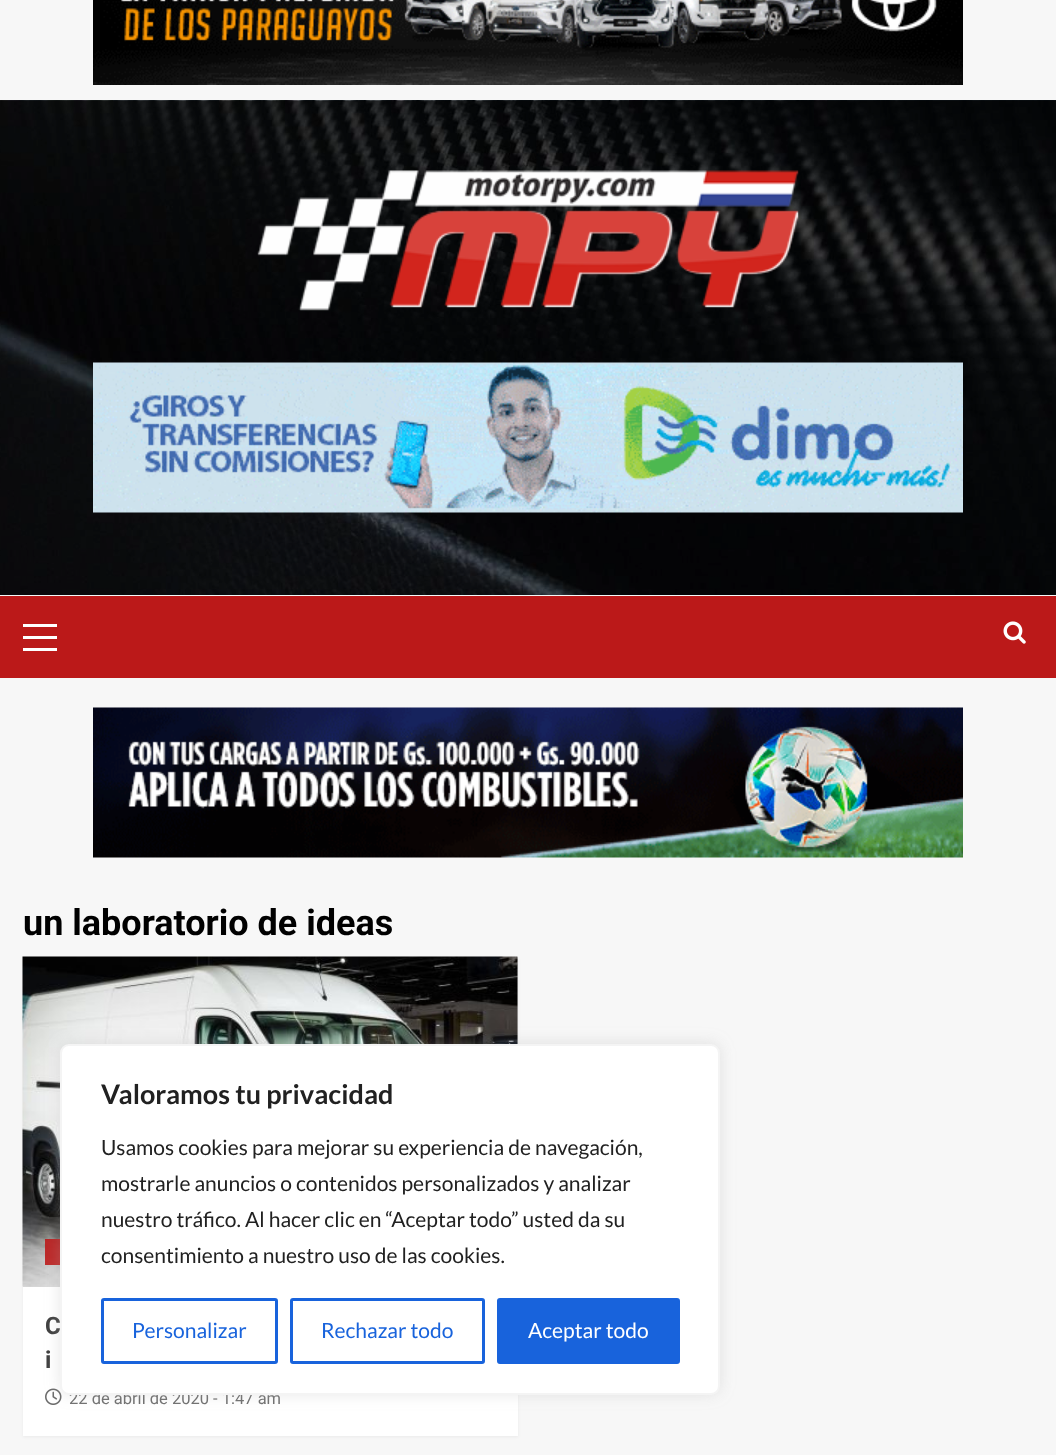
<?xml version="1.0" encoding="UTF-8"?>
<svg xmlns="http://www.w3.org/2000/svg" width="1056" height="1455">
    <defs>
        <filter id="blur1" x="-50%" y="-200%" width="200%" height="500%"><feGaussianBlur stdDeviation="1.5"/></filter>
        <filter id="blur2" x="-50%" y="-200%" width="200%" height="500%"><feGaussianBlur stdDeviation="7.5"/></filter>
    </defs>
    <rect width="100%" height="100%" fill="#F7F7F7"/>
    <image x="93" y="0" width="870" height="85" href="img_01.png"/>
    <image x="0" y="100" width="1056" height="495" href="img_02.png"/>
    <image x="257" y="170" width="542" height="141" href="img_03.png"/>
    <image x="93" y="362" width="870" height="151" href="img_04.png"/>
    <rect x="0" y="596" width="1056" height="82" fill="#BB1919"/>
    <rect x="23" y="636" width="34" height="3" fill="#FFFFFF"/>
    <rect x="23" y="624" width="34" height="3" fill="#FFFFFF"/>
    <rect x="23" y="648" width="34" height="3" fill="#FFFFFF"/>
    <image x="1003" y="621" width="23" height="23" href="img_05.png"/>
    <image x="93" y="707" width="870" height="151" href="img_06.png"/>
    <text x="23" y="935" font-family="Roboto" font-size="36" font-weight="700" fill="#000000">un laboratorio de ideas</text>
    <rect x="23" y="959" width="495" height="478" fill="#000000" fill-opacity="0.05" filter="url(#blur1)"/>
    <rect x="23" y="1287" width="495" height="149" fill="#FFFFFF"/>
    <rect x="23" y="957" width="495" height="330" fill="#D8D8D8"/>
    <image x="22" y="956" width="496" height="331" href="img_07.png"/>
    <rect x="45" y="1239" width="15" height="26" fill="#BB1919" fill-opacity="0.9"/>
    <text font-family="Roboto" font-size="24" font-weight="700" fill="#404040">
        <tspan x="45" y="1334">C</tspan>
        <tspan x="45" y="1368">i</tspan>
    </text>
    <image x="45" y="1388" width="17" height="17" href="img_08.png"/>
    <text x="69" y="1404" font-family="Roboto" font-size="16.5" fill="#707070">22 de abril de 2020 - 1:47 am</text>
    <rect x="60" y="1043" width="660" height="351" rx="9" fill="#ACABAB" fill-opacity="0.3" filter="url(#blur2)"/>
    <rect x="61" y="1045" width="658" height="349" rx="8" fill="#FFFFFF" stroke="#F4F4F4" stroke-width="2"/>
    <text x="101" y="1104" font-family="Lato" font-size="27" font-weight="700" fill="#212121">Valoramos tu privacidad</text>
    <text font-family="Lato" font-size="21" fill="#212121">
        <tspan x="101" y="1155">Usamos cookies para mejorar su experiencia de navegación,</tspan>
        <tspan x="101" y="1191">mostrarle anuncios o contenidos personalizados y analizar</tspan>
        <tspan x="101" y="1227">nuestro tráfico. Al hacer clic en “Aceptar todo” usted da su</tspan>
        <tspan x="101" y="1263">consentimiento a nuestro uso de las cookies.</tspan>
    </text>
    <rect x="102.5" y="1299.5" width="174" height="63" rx="1.5" fill="none" stroke="#1863DC" stroke-width="3"/>
    <text x="132" y="1338" font-family="Lato" font-size="21" fill="#1863DC">Personalizar</text>
    <rect x="291.5" y="1299.5" width="192" height="63" rx="1.5" fill="none" stroke="#1863DC" stroke-width="3"/>
    <text x="321" y="1338" font-family="Lato" font-size="21" fill="#1863DC">Rechazar todo</text>
    <rect x="498.5" y="1299.5" width="180" height="63" rx="1.5" fill="#1863DC" stroke="#1863DC" stroke-width="3"/>
    <text x="528" y="1338" font-family="Lato" font-size="21" fill="#FFFFFF">Aceptar todo</text>
</svg>
